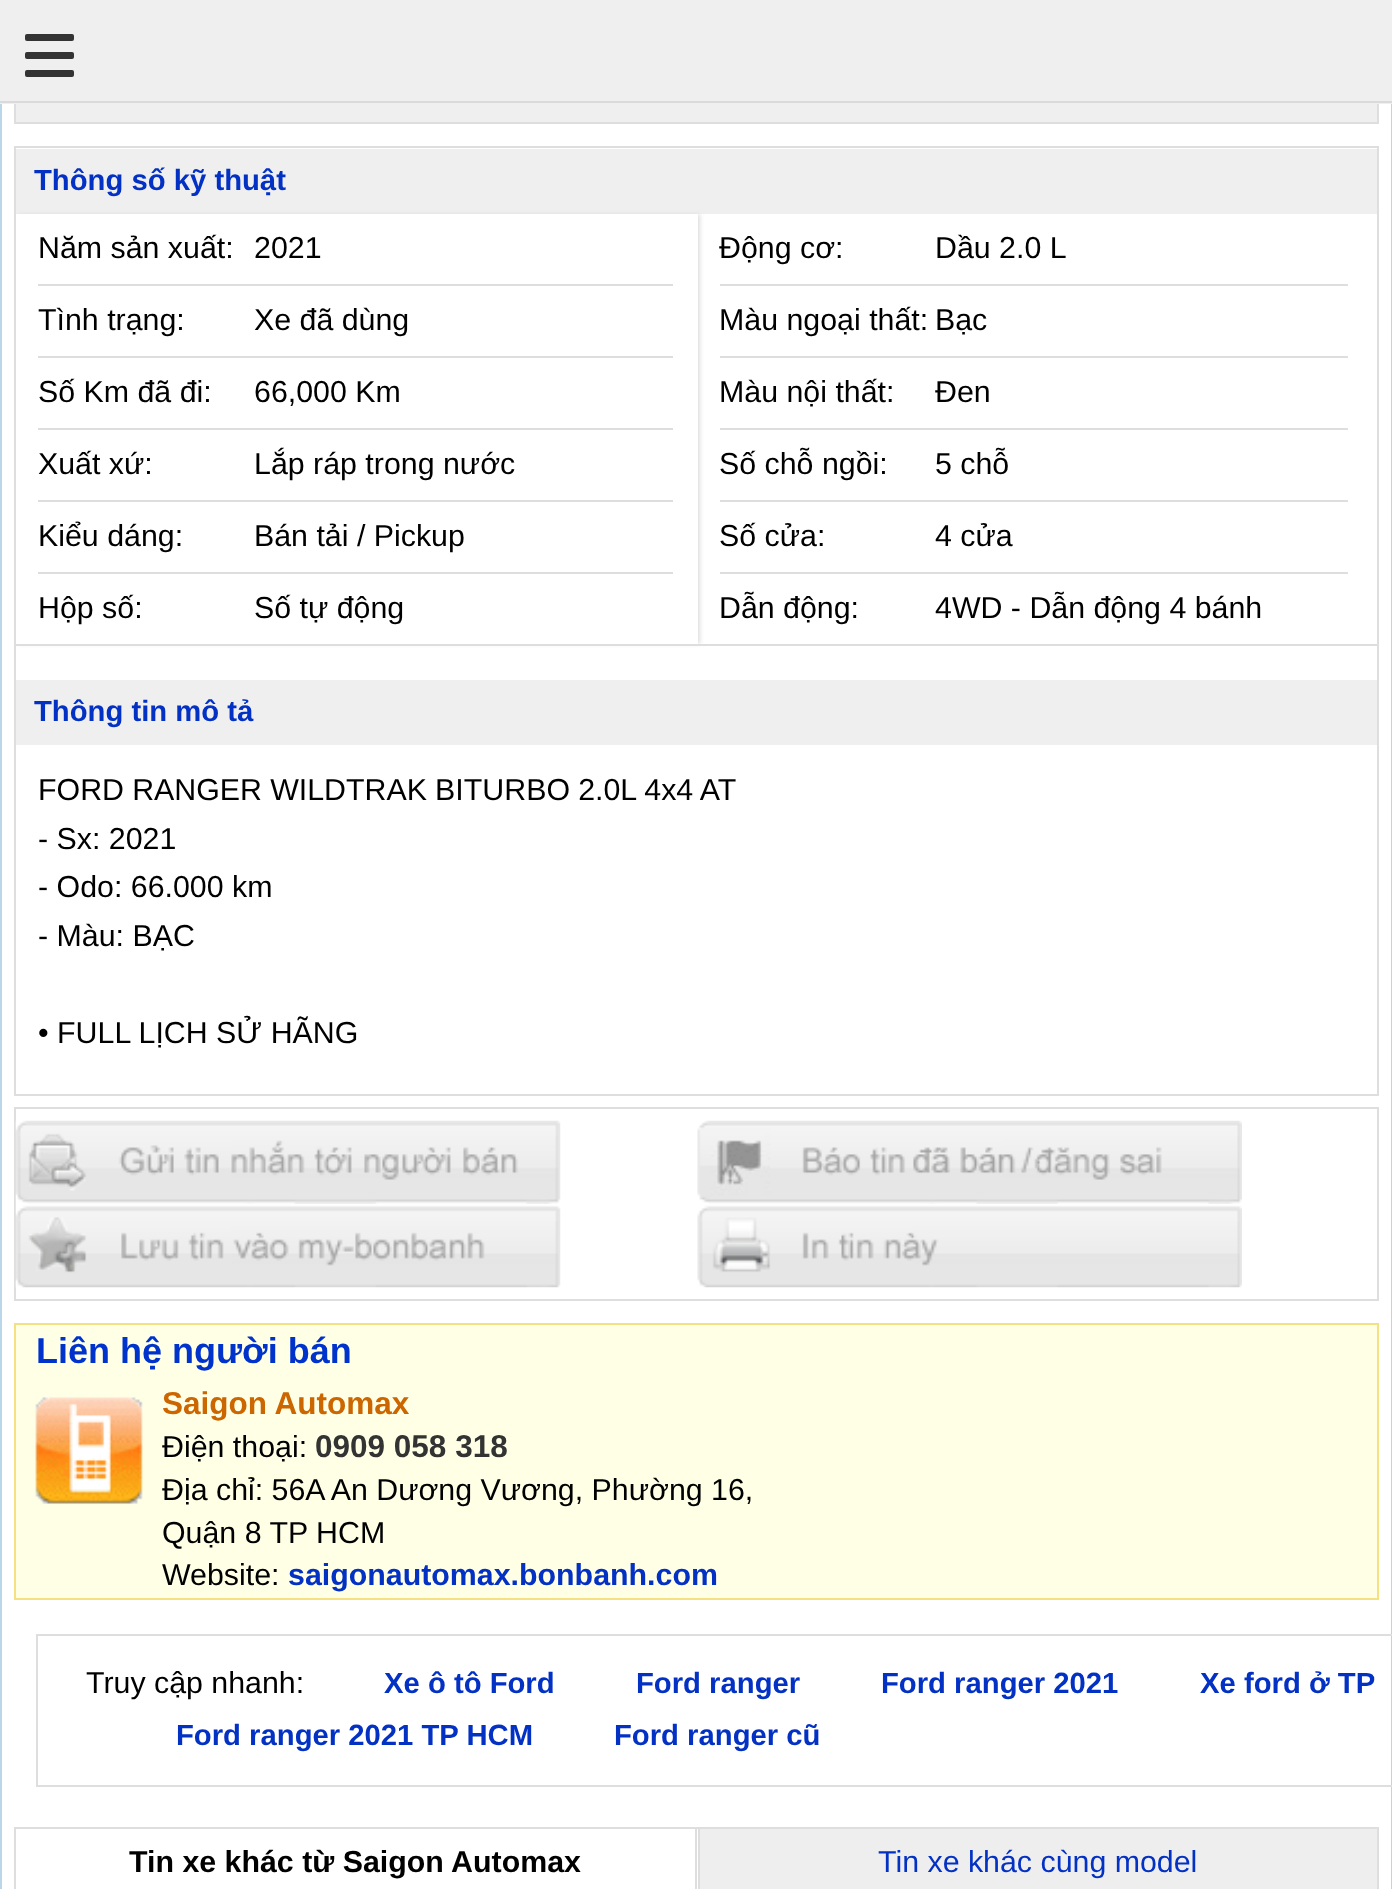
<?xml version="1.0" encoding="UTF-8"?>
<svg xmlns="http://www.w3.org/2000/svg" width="1392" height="1889">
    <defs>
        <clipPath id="clip1"><path d="M 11 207 H 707 V 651 H 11 Z M 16 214 H 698 V 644 H 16 Z" clip-rule="evenodd"/></clipPath>
        <filter id="blur1" x="-50%" y="-200%" width="200%" height="500%"><feGaussianBlur stdDeviation="2"/></filter>
    </defs>
    <rect width="100%" height="100%" fill="#FFFFFF"/>
    <rect x="1" y="-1" width="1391" height="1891" fill="none" stroke="#B9D7E9" stroke-width="2"/>
    <rect x="16" y="104" width="1361" height="18" fill="#EFEFEF"/>
    <rect x="15" y="-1" width="1363" height="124" fill="none" stroke="#DEDEDE" stroke-width="2"/>
    <rect x="0" y="0" width="1392" height="104" fill="#EFEFEF"/>
    <rect x="0" y="101" width="1392" height="2" fill="#DADADA"/>
    <rect x="25" y="34" width="49" height="7" rx="2" fill="#333333"/>
    <rect x="25" y="52" width="49" height="7" rx="2" fill="#333333"/>
    <rect x="25" y="70" width="49" height="7" rx="2" fill="#333333"/>
    <rect x="15" y="147" width="1363" height="948" fill="none" stroke="#DEDEDE" stroke-width="2"/>
    <rect x="16" y="644" width="1361" height="2" fill="#DEDEDE"/>
    <rect x="16" y="149" width="1361" height="65" fill="#EFEFEF"/>
    <text x="34" y="190" font-family="Liberation Sans" font-size="29.25" font-weight="700" fill="#0331C4">Thông số kỹ thuật</text>
    <g clip-path="url(#clip1)">
        <rect x="18" y="214" width="682" height="430" fill="#DEDEDE" filter="url(#blur1)"/>
    </g>
    <rect x="38" y="284" width="635" height="2" fill="#DEDEDE"/>
    <text x="38" y="258" font-family="Liberation Sans" font-size="30.35" fill="#000000">Năm sản xuất:</text>
    <text x="254" y="258" font-family="Liberation Sans" font-size="30.35" fill="#000000">2021</text>
    <rect x="38" y="356" width="635" height="2" fill="#DEDEDE"/>
    <text x="38" y="330" font-family="Liberation Sans" font-size="30.35" fill="#000000">Tình trạng:</text>
    <text x="254" y="330" font-family="Liberation Sans" font-size="30.35" fill="#000000">Xe đã dùng</text>
    <rect x="38" y="428" width="635" height="2" fill="#DEDEDE"/>
    <text x="38" y="402" font-family="Liberation Sans" font-size="30.35" fill="#000000">Số Km đã đi:</text>
    <text x="254" y="402" font-family="Liberation Sans" font-size="30.35" fill="#000000">66,000 Km</text>
    <rect x="38" y="500" width="635" height="2" fill="#DEDEDE"/>
    <text x="38" y="474" font-family="Liberation Sans" font-size="30.35" fill="#000000">Xuất xứ:</text>
    <text x="254" y="474" font-family="Liberation Sans" font-size="30.35" fill="#000000">Lắp ráp trong nước</text>
    <rect x="38" y="572" width="635" height="2" fill="#DEDEDE"/>
    <text x="38" y="546" font-family="Liberation Sans" font-size="30.35" fill="#000000">Kiểu dáng:</text>
    <text x="254" y="546" font-family="Liberation Sans" font-size="30.35" fill="#000000">Bán tải / Pickup</text>
    <text x="38" y="618" font-family="Liberation Sans" font-size="30.35" fill="#000000">Hộp số:</text>
    <text x="254" y="618" font-family="Liberation Sans" font-size="30.35" fill="#000000">Số tự động</text>
    <rect x="720" y="284" width="628" height="2" fill="#DEDEDE"/>
    <text x="719" y="258" font-family="Liberation Sans" font-size="30.35" fill="#000000">Động cơ:</text>
    <text x="935" y="258" font-family="Liberation Sans" font-size="30.35" fill="#000000">Dầu 2.0 L</text>
    <rect x="720" y="356" width="628" height="2" fill="#DEDEDE"/>
    <text x="719" y="330" font-family="Liberation Sans" font-size="30.35" fill="#000000">Màu ngoại thất:</text>
    <text x="935" y="330" font-family="Liberation Sans" font-size="30.35" fill="#000000">Bạc</text>
    <rect x="720" y="428" width="628" height="2" fill="#DEDEDE"/>
    <text x="719" y="402" font-family="Liberation Sans" font-size="30.35" fill="#000000">Màu nội thất:</text>
    <text x="935" y="402" font-family="Liberation Sans" font-size="30.35" fill="#000000">Đen</text>
    <rect x="720" y="500" width="628" height="2" fill="#DEDEDE"/>
    <text x="719" y="474" font-family="Liberation Sans" font-size="30.35" fill="#000000">Số chỗ ngồi:</text>
    <text x="935" y="474" font-family="Liberation Sans" font-size="30.35" fill="#000000">5 chỗ</text>
    <rect x="720" y="572" width="628" height="2" fill="#DEDEDE"/>
    <text x="719" y="546" font-family="Liberation Sans" font-size="30.35" fill="#000000">Số cửa:</text>
    <text x="935" y="546" font-family="Liberation Sans" font-size="30.35" fill="#000000">4 cửa</text>
    <text x="719" y="618" font-family="Liberation Sans" font-size="30.35" fill="#000000">Dẫn động:</text>
    <text x="935" y="618" font-family="Liberation Sans" font-size="30.35" fill="#000000">4WD - Dẫn động 4 bánh</text>
    <rect x="16" y="680" width="1361" height="65" fill="#EFEFEF"/>
    <text x="34" y="721" font-family="Liberation Sans" font-size="29.25" font-weight="700" fill="#0331C4">Thông tin mô tả</text>
    <text font-family="Liberation Sans" font-size="30.35" fill="#000000">
        <tspan x="38" y="800" word-spacing="-0.25">FORD RANGER WILDTRAK BITURBO 2.0L 4x4 AT</tspan>
        <tspan x="38" y="849">- Sx: 2021</tspan>
        <tspan x="38" y="897">- Odo: 66.000 km</tspan>
        <tspan x="38" y="946">- Màu: BẠC</tspan>
    </text>
    <text x="38" y="1043" font-family="Liberation Sans" font-size="30.35" fill="#000000">• FULL LỊCH SỬ HÃNG</text>
    <rect x="15" y="1108" width="1363" height="192" fill="none" stroke="#DEDEDE" stroke-width="2"/>
    <image x="15" y="1120" width="546" height="84" href="img_01.png"/>
    <image x="697" y="1120" width="545" height="84" href="img_02.png"/>
    <image x="15" y="1204" width="546" height="84" href="img_03.png"/>
    <image x="697" y="1204" width="545" height="84" href="img_04.png"/>
    <rect x="15" y="1324" width="1363" height="275" fill="#FFFFE5" stroke="#F5E082" stroke-width="2"/>
    <text x="36" y="1363" font-family="Liberation Sans" font-size="36" font-weight="700" fill="#0033CC">Liên hệ người bán</text>
    <text x="162" y="1414" font-family="Liberation Sans" font-size="31.5" font-weight="700" fill="#CC6600">Saigon Automax</text>
    <text x="162" y="1457" font-family="Liberation Sans" font-size="30.35" fill="#000000">Điện thoại:</text>
    <text x="315" y="1457" font-family="Liberation Sans" font-size="31.5" font-weight="700" fill="#333333">0909 058 318</text>
    <text font-family="Liberation Sans" font-size="30.35" fill="#000000">
        <tspan x="162" y="1500">Địa chỉ: 56A An Dương Vương, Phường 16,</tspan>
        <tspan x="162" y="1543">Quận 8 TP HCM</tspan>
        <tspan x="162" y="1585">Website:</tspan>
    </text>
    <text x="288" y="1585" font-family="Liberation Sans" font-size="30.35" font-weight="700" fill="#0331C4">saigonautomax.bonbanh.com</text>
    <image x="35" y="1397" width="108" height="107" href="img_05.png"/>
    <rect x="37" y="1635" width="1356" height="151" fill="none" stroke="#DEDEDE" stroke-width="2"/>
    <text x="86" y="1693" font-family="Liberation Sans" font-size="30.35" fill="#000000">Truy cập nhanh:</text>
    <text x="384" y="1693" font-family="Liberation Sans" font-size="29.25" font-weight="700" fill="#0331C4">Xe ô tô Ford</text>
    <text x="636" y="1693" font-family="Liberation Sans" font-size="29.25" font-weight="700" fill="#0331C4">Ford ranger</text>
    <text x="881" y="1693" font-family="Liberation Sans" font-size="29.25" font-weight="700" fill="#0331C4">Ford ranger 2021</text>
    <text x="1200" y="1693" font-family="Liberation Sans" font-size="29.25" font-weight="700" fill="#0331C4">Xe ford ở TP</text>
    <text x="176" y="1745" font-family="Liberation Sans" font-size="29.25" font-weight="700" fill="#0331C4">Ford ranger 2021 TP HCM</text>
    <text x="614" y="1745" font-family="Liberation Sans" font-size="29.25" font-weight="700" fill="#0331C4">Ford ranger cũ</text>
    <rect x="14" y="1827" width="684" height="2" fill="#DEDEDE"/>
    <rect x="695" y="1827" width="2" height="62" fill="#DEDEDE"/>
    <rect x="14" y="1827" width="2" height="62" fill="#DEDEDE"/>
    <text x="129" y="1872" font-family="Liberation Sans" font-size="30.35" font-weight="700" fill="#000000">Tin xe khác từ Saigon Automax</text>
    <rect x="699" y="1828" width="679" height="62" fill="#EEEEEE" stroke="#DEDEDE" stroke-width="2"/>
    <text x="878" y="1872" font-family="Liberation Sans" font-size="30.35" fill="#0331C4">Tin xe khác cùng model</text>
</svg>
